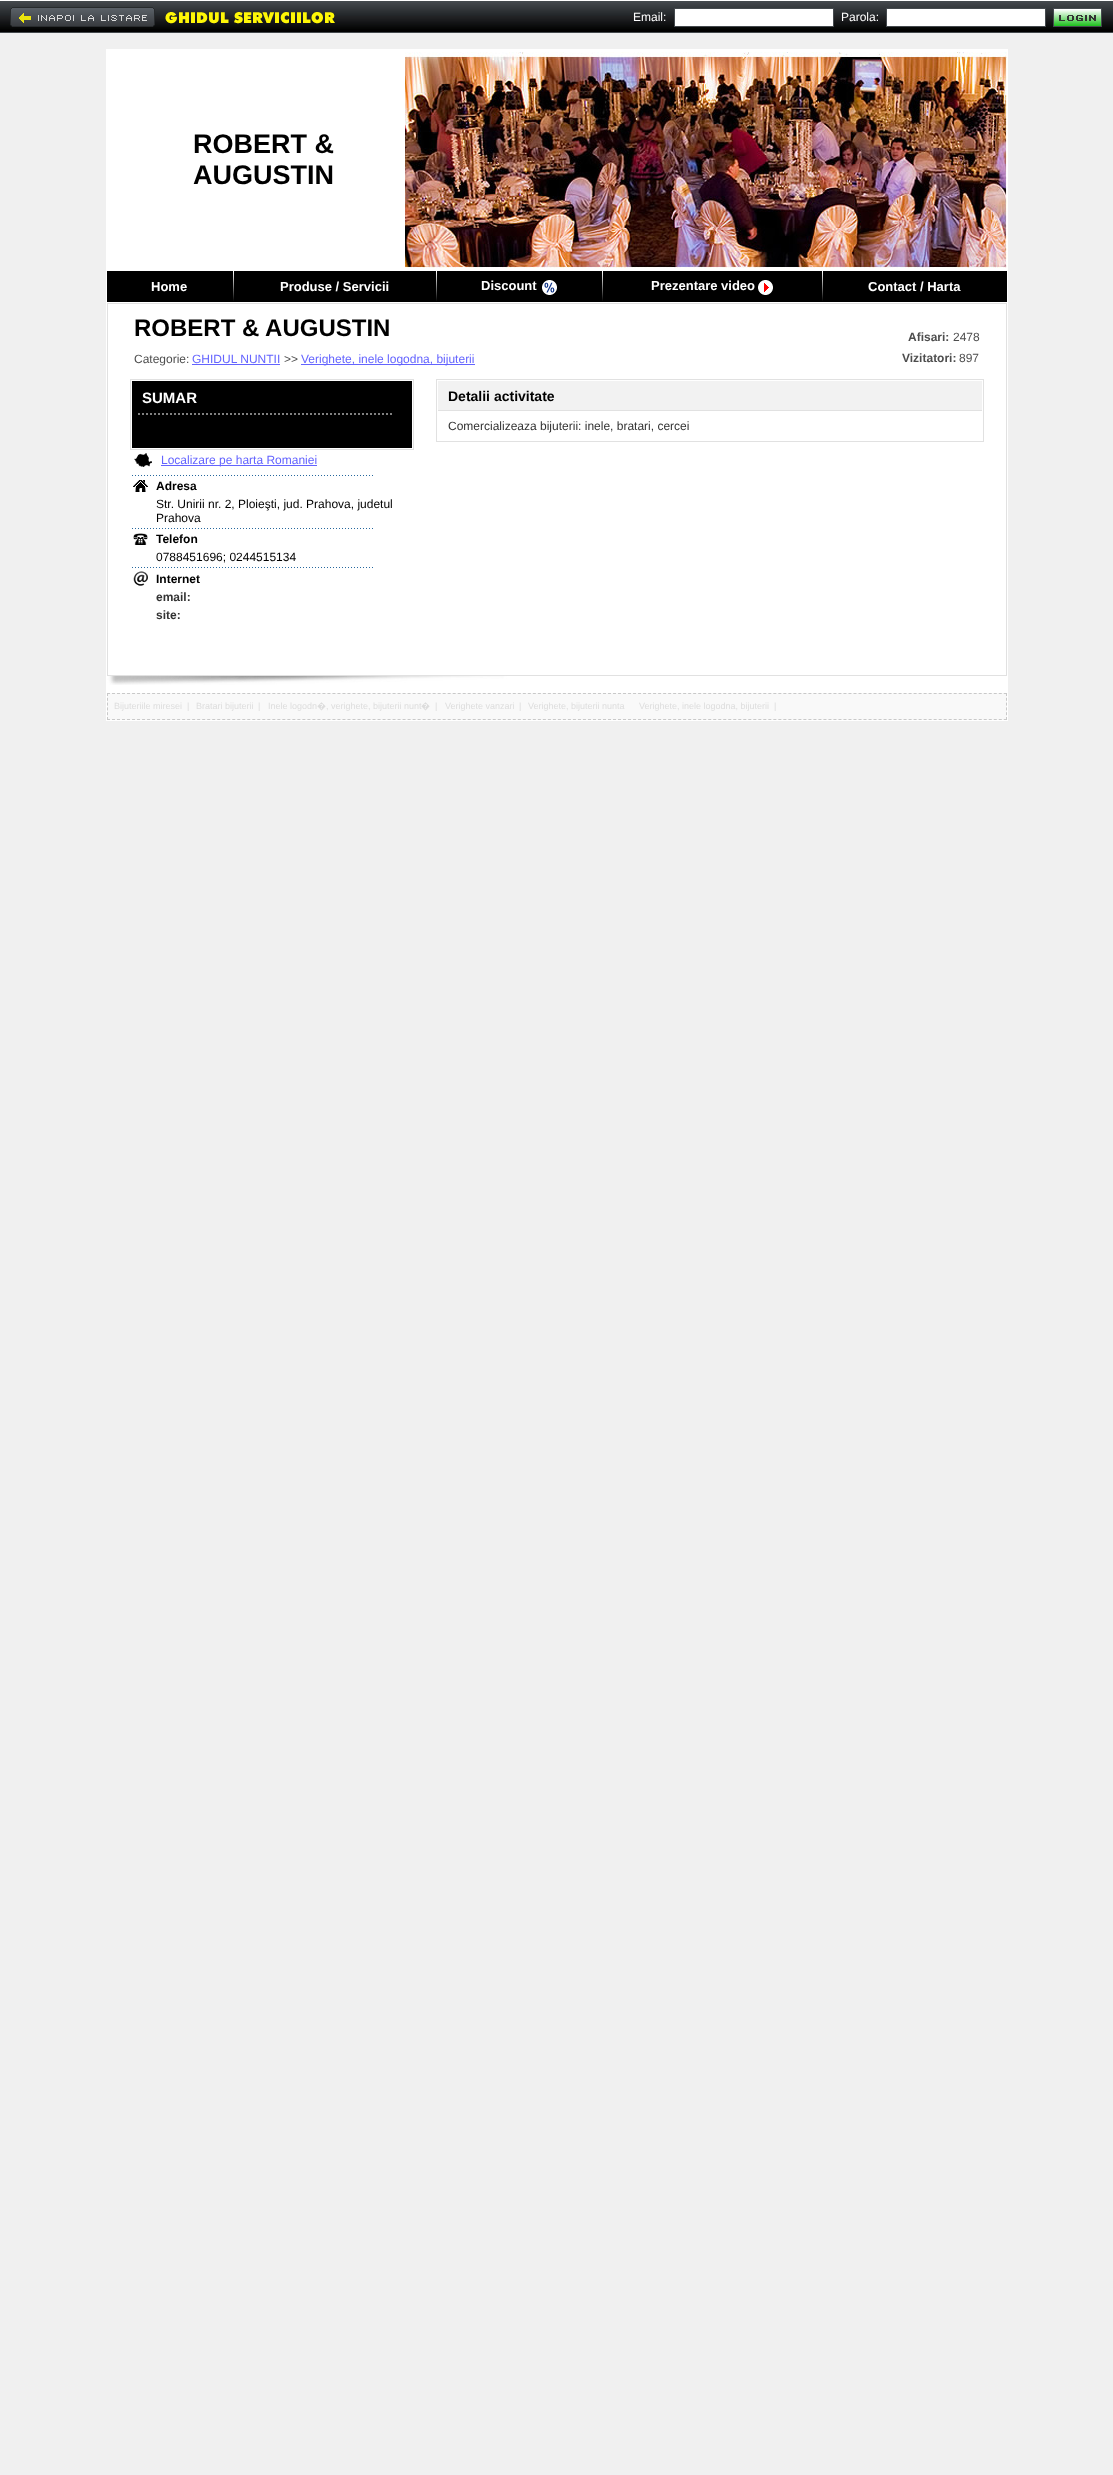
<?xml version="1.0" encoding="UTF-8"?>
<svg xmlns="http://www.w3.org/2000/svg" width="1113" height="2475">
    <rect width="100%" height="100%" fill="#F0F0F0"/>
    <image x="0" y="1" width="1113" height="32" href="img_01.png"/>
    <rect x="0" y="0" width="1113" height="1" fill="#FFFFFF"/>
    <image x="10" y="7" width="145" height="20" href="img_02.png"/>
    <image x="165" y="12" width="170" height="12" href="img_03.png"/>
    <text x="633" y="21" font-family="Liberation Sans" font-size="12" fill="#FFFFFF">Email:</text>
    <rect x="674.5" y="8.5" width="159" height="18" fill="#FFFFFF" stroke="#44494D"/>
    <text x="841" y="21" font-family="Liberation Sans" font-size="12" fill="#FFFFFF">Parola:</text>
    <rect x="886.5" y="8.5" width="159" height="18" fill="#FFFFFF" stroke="#44494D"/>
    <image x="1053" y="8" width="49" height="19" href="img_04.png"/>
    <rect x="106.5" y="49.5" width="901" height="671" fill="none" stroke="#FFFFFF"/>
    <rect x="107" y="50" width="900" height="221" fill="#FFFFFF"/>
    <image x="405" y="52" width="602" height="216" href="img_05.png"/>
    <text font-family="Liberation Sans" font-size="27" font-weight="700" fill="#000000">
        <tspan x="193" y="153">ROBERT &amp;</tspan>
        <tspan x="193" y="184">AUGUSTIN</tspan>
    </text>
    <rect x="107" y="302" width="900" height="1" fill="#FFFFFF"/>
    <rect x="107" y="271" width="900" height="31" fill="#000000"/>
    <text x="151" y="291" font-family="Liberation Sans" font-size="13" font-weight="700" fill="#FFFFFF">Home</text>
    <image x="233" y="271" width="1" height="30" href="img_06.png"/>
    <text x="280" y="291" font-family="Liberation Sans" font-size="13" font-weight="700" fill="#FFFFFF">Produse / Servicii</text>
    <image x="436" y="271" width="1" height="30" href="img_06.png"/>
    <text x="481" y="290" font-family="Liberation Sans" font-size="13" font-weight="700" fill="#FFFFFF">Discount</text>
    <image x="542" y="280" width="15" height="15" href="img_07.png"/>
    <image x="602" y="271" width="1" height="30" href="img_06.png"/>
    <text x="651" y="290" font-family="Liberation Sans" font-size="13" font-weight="700" fill="#FFFFFF">Prezentare video</text>
    <image x="758" y="280" width="15" height="15" href="img_08.png"/>
    <image x="822" y="271" width="1" height="30" href="img_06.png"/>
    <text x="868" y="291" font-family="Liberation Sans" font-size="13" font-weight="700" fill="#FFFFFF">Contact / Harta</text>
    <rect x="108" y="304" width="898" height="371" fill="#FFFFFF"/>
    <rect x="107" y="303" width="900" height="1" fill="#E1E1E1"/>
    <rect x="1006" y="303" width="1" height="372" fill="#E1E1E1"/>
    <rect x="107" y="303" width="1" height="372" fill="#E1E1E1"/>
    <text x="134" y="336" font-family="Liberation Sans" font-size="24" font-weight="700" fill="#000000">ROBERT &amp; AUGUSTIN</text>
    <text x="908" y="341" font-family="Liberation Sans" font-size="12" font-weight="700" fill="#4E4E4E">Afisari:</text>
    <text x="953" y="341" font-family="Liberation Sans" font-size="12" fill="#4E4E4E">2478</text>
    <text x="134" y="363" font-family="Liberation Sans" font-size="12" fill="#4E4E4E">Categorie:</text>
    <text x="192" y="363" font-family="Liberation Sans" font-size="12" fill="#6464FF">GHIDUL NUNTII</text>
    <rect x="192" y="364" width="88" height="1" fill="#6464FF"/>
    <text x="284" y="363" font-family="Liberation Sans" font-size="12" fill="#4E4E4E">&gt;&gt;</text>
    <rect x="301" y="364" width="174" height="1" fill="#6464FF"/>
    <text x="301" y="363" font-family="Liberation Sans" font-size="12" fill="#6464FF">Verighete, inele logodna, bijuterii</text>
    <text x="902" y="362" font-family="Liberation Sans" font-size="12" font-weight="700" fill="#4E4E4E">Vizitatori:</text>
    <text x="959" y="362" font-family="Liberation Sans" font-size="12" fill="#4E4E4E">897</text>
    <rect x="130.5" y="379.5" width="283" height="70" fill="none" stroke="#E1E1E1"/>
    <rect x="132" y="381" width="280" height="67" fill="#000000"/>
    <text x="142" y="403" font-family="Liberation Sans" font-size="15" font-weight="700" fill="#FFFFFF">SUMAR</text>
    <image x="138" y="413" width="254" height="2" href="img_09.png"/>
    <image x="134" y="453" width="18" height="14" href="img_10.png"/>
    <rect x="161" y="465" width="156" height="1" fill="#6464FF"/>
    <text x="161" y="464" font-family="Liberation Sans" font-size="12" fill="#6464FF">Localizare pe harta Romaniei</text>
    <image x="132" y="475" width="241" height="1" href="img_11.png"/>
    <image x="133" y="480" width="15" height="12" href="img_12.png"/>
    <text x="156" y="490" font-family="Liberation Sans" font-size="12" font-weight="700" fill="#000000">Adresa</text>
    <text font-family="Liberation Sans" font-size="12" fill="#000000">
        <tspan x="156" y="508">Str. Unirii nr. 2, Ploieşti, jud. Prahova, judetul</tspan>
        <tspan x="156" y="522">Prahova</tspan>
    </text>
    <image x="132" y="528" width="241" height="1" href="img_11.png"/>
    <image x="133" y="533" width="15" height="12" href="img_13.png"/>
    <text x="156" y="543" font-family="Liberation Sans" font-size="12" font-weight="700" fill="#000000">Telefon</text>
    <text x="156" y="561" font-family="Liberation Sans" font-size="12" fill="#000000">0788451696; 0244515134</text>
    <image x="132" y="567" width="241" height="1" href="img_11.png"/>
    <image x="133" y="571" width="15" height="15" href="img_14.png"/>
    <text x="156" y="583" font-family="Liberation Sans" font-size="12" font-weight="700" fill="#000000">Internet</text>
    <text font-family="Liberation Sans" font-size="12" font-weight="700" fill="#333333">
        <tspan x="156" y="601">email:</tspan>
        <tspan x="156" y="619">site:</tspan>
    </text>
    <rect x="436.5" y="379.5" width="547" height="62" fill="none" stroke="#E1E1E1"/>
    <rect x="438" y="381" width="544" height="29" fill="#F2F2F2"/>
    <rect x="438" y="410" width="544" height="1" fill="#E1E1E1"/>
    <text x="448" y="401" font-family="Liberation Sans" font-size="14" font-weight="700" fill="#000000">Detalii activitate</text>
    <text x="448" y="430" font-family="Liberation Sans" font-size="12" fill="#333333">Comercializeaza bijuterii: inele, bratari, cercei</text>
    <rect x="107" y="685" width="900" height="8" fill="#FFFFFF"/>
    <image x="107" y="675" width="900" height="10" href="img_15.png"/>
    <rect x="107" y="693" width="900" height="27" fill="#F9F9F9"/>
    <path d="M 107 693.5 H 1007" fill="none" stroke="#C9C9C9" stroke-dasharray="3 2.01"/>
    <path d="M 1006.5 693 V 720" fill="none" stroke="#C9C9C9" stroke-dasharray="3 1.8"/>
    <path d="M 107 719.5 H 1007" fill="none" stroke="#C9C9C9" stroke-dasharray="3 2.01"/>
    <path d="M 107.5 693 V 720" fill="none" stroke="#C9C9C9" stroke-dasharray="3 1.8"/>
    <text x="114" y="709" font-family="Liberation Sans" font-size="9" fill="#DDDDDD">Bijuteriile miresei</text>
    <text x="187" y="709" font-family="Liberation Sans" font-size="9" fill="#DDDDDD">|</text>
    <text x="196" y="709" font-family="Liberation Sans" font-size="9" fill="#DDDDDD">Bratari bijuterii</text>
    <text x="258" y="709" font-family="Liberation Sans" font-size="9" fill="#DDDDDD">|</text>
    <text x="268" y="709" font-family="Liberation Sans" font-size="9" fill="#DDDDDD">Inele logodn</text>
    <text x="317" y="709" font-family="Noto Sans" font-size="9" fill="#DDDDDD">�</text>
    <text x="326" y="709" font-family="Liberation Sans" font-size="9" fill="#DDDDDD">, verighete, bijuterii nunt</text>
    <text x="421" y="709" font-family="Noto Sans" font-size="9" fill="#DDDDDD">�</text>
    <text x="435" y="709" font-family="Liberation Sans" font-size="9" fill="#DDDDDD">|</text>
    <text x="445" y="709" font-family="Liberation Sans" font-size="9" fill="#DDDDDD">Verighete vanzari</text>
    <text x="519" y="709" font-family="Liberation Sans" font-size="9" fill="#DDDDDD">|</text>
    <text x="528" y="709" font-family="Liberation Sans" font-size="9" fill="#DDDDDD">Verighete, bijuterii nunta</text>
    <text x="639" y="709" font-family="Liberation Sans" font-size="9" fill="#DDDDDD">Verighete, inele logodna, bijuterii</text>
    <text x="774" y="709" font-family="Liberation Sans" font-size="9" fill="#DDDDDD">|</text>
</svg>
